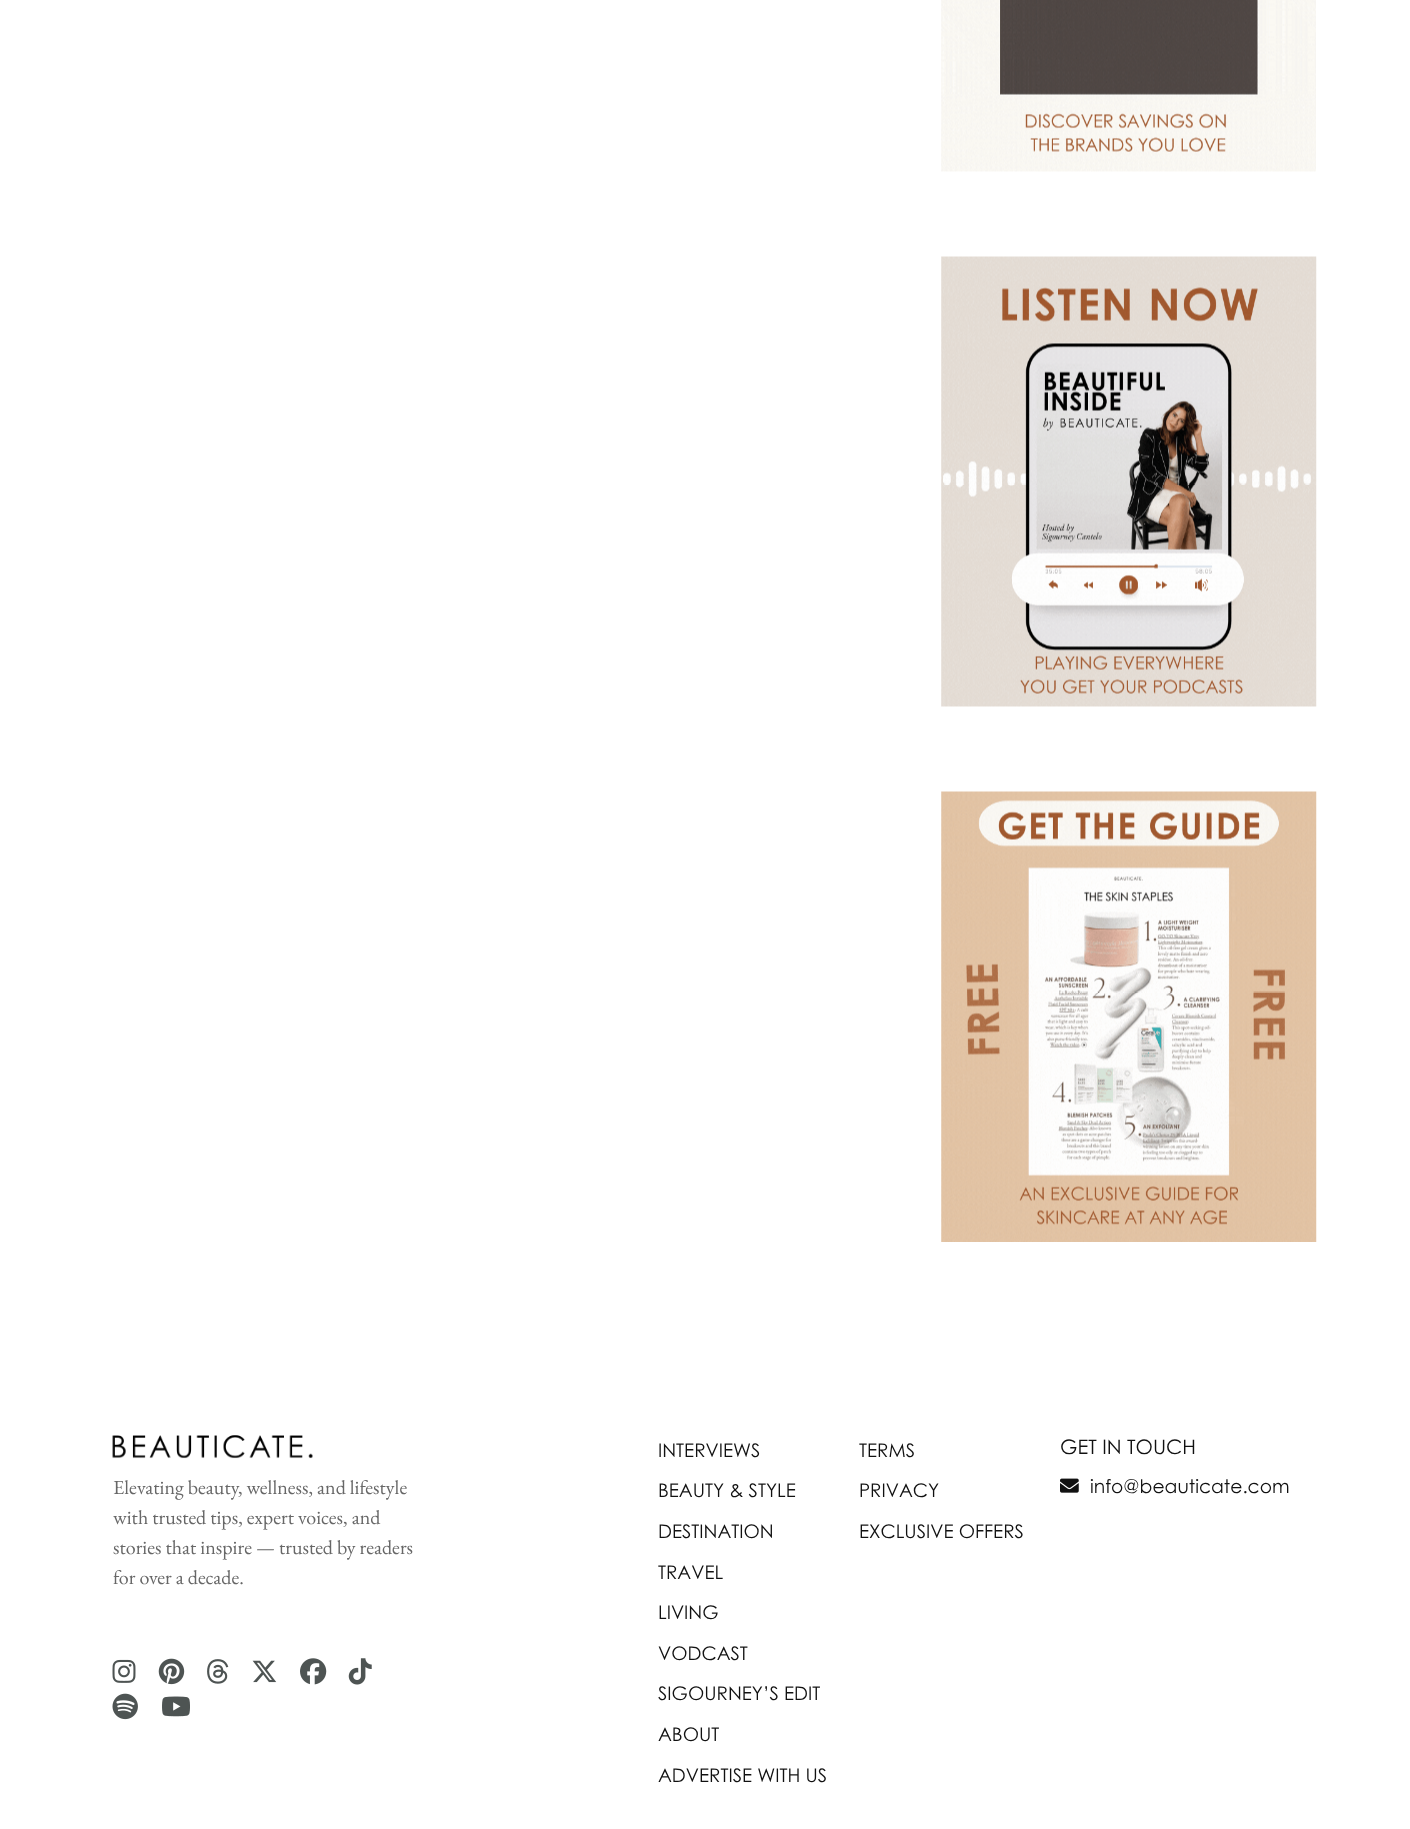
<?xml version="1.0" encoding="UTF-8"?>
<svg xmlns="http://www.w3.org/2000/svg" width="1410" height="1829">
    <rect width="100%" height="100%" fill="#FFFFFF"/>
    <image x="941" y="0" width="375" height="172" href="img_01.png"/>
    <image x="941" y="256" width="376" height="451" href="img_02.png"/>
    <image x="941" y="791" width="376" height="451" href="img_03.png"/>
    <image x="112" y="1435" width="201" height="24" href="img_04.png"/>
    <text font-family="EB Garamond" font-size="20" fill="#676767">
        <tspan x="113" y="1494">Elevating beauty, wellness, and lifestyle</tspan>
        <tspan x="113" y="1524">with trusted tips, expert voices, and</tspan>
        <tspan x="113" y="1554">stories that inspire — trusted by readers</tspan>
        <tspan x="113" y="1584">for over a decade.</tspan>
    </text>
    <image x="112" y="1659" width="24" height="24" href="img_05.png"/>
    <image x="158" y="1658" width="27" height="27" href="img_06.png"/>
    <image x="207" y="1659" width="22" height="25" href="img_07.png"/>
    <image x="252" y="1660" width="25" height="23" href="img_08.png"/>
    <image x="300" y="1658" width="27" height="27" href="img_09.png"/>
    <image x="348" y="1658" width="24" height="27" href="img_10.png"/>
    <image x="112" y="1693" width="26" height="27" href="img_11.png"/>
    <image x="162" y="1696" width="28" height="21" href="img_12.png"/>
    <text x="658" y="1457" font-family="Century Gothic" font-size="18.75" fill="#111111">INTERVIEWS</text>
    <text x="658" y="1497" font-family="Century Gothic" font-size="18.75" fill="#111111">BEAUTY &amp; STYLE</text>
    <text x="658" y="1538" font-family="Century Gothic" font-size="18.75" fill="#111111">DESTINATION</text>
    <text x="658" y="1579" font-family="Century Gothic" font-size="18.75" fill="#111111">TRAVEL</text>
    <text x="658" y="1619" font-family="Century Gothic" font-size="18.75" fill="#111111">LIVING</text>
    <text x="658" y="1660" font-family="Century Gothic" font-size="18.75" fill="#111111">VODCAST</text>
    <text x="658" y="1700" font-family="Century Gothic" font-size="18.75" fill="#111111">SIGOURNEY’S EDIT</text>
    <text x="658" y="1741" font-family="Century Gothic" font-size="18.75" fill="#111111">ABOUT</text>
    <text x="658" y="1782" font-family="Century Gothic" font-size="18.75" fill="#111111">ADVERTISE WITH US</text>
    <text x="859" y="1457" font-family="Century Gothic" font-size="18.75" fill="#111111">TERMS</text>
    <text x="859" y="1497" font-family="Century Gothic" font-size="18.75" fill="#111111">PRIVACY</text>
    <text x="859" y="1538" font-family="Century Gothic" font-size="18.75" fill="#111111">EXCLUSIVE OFFERS</text>
    <text x="1060" y="1454" font-family="Century Gothic" font-size="20" fill="#111111">GET IN TOUCH</text>
    <image x="1060" y="1478" width="19" height="15" href="img_13.png"/>
    <text x="1090" y="1493" font-family="Century Gothic" font-size="18.75" fill="#111111">info@beauticate.com</text>
</svg>
